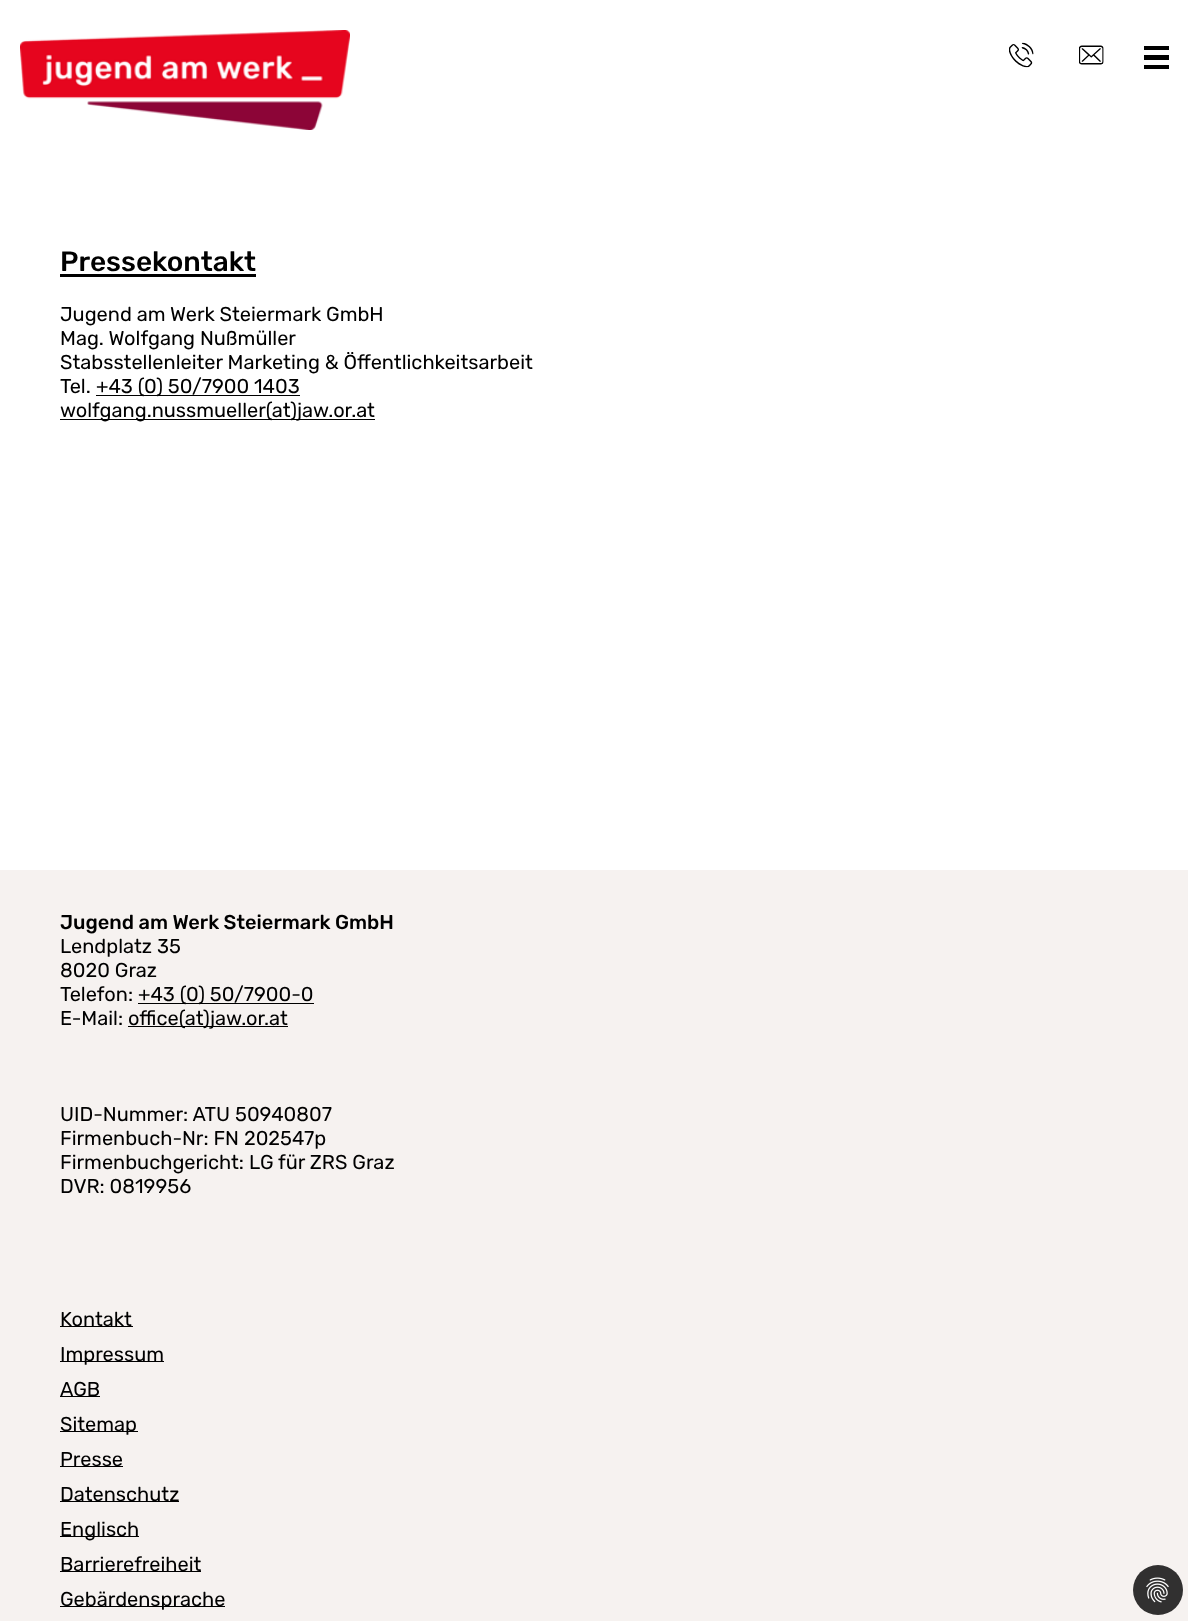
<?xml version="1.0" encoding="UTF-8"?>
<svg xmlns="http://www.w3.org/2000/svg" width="1188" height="1621">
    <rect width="100%" height="100%" fill="#FFFFFF"/>
    <image x="20" y="30" width="330" height="100" href="img_01.png"/>
    <image x="1009" y="42" width="25" height="26" href="img_02.png"/>
    <image x="1079" y="45" width="25" height="20" href="img_03.png"/>
    <rect x="1144" y="46" width="25" height="4" fill="#000000"/>
    <rect x="1144" y="55" width="25" height="5" fill="#000000"/>
    <rect x="1144" y="65" width="25" height="4" fill="#000000"/>
    <text x="60" y="271" font-family="Rubik" font-size="28" font-weight="500" fill="#000000">Pressekontakt</text>
    <rect x="60" y="274" width="196" height="3" fill="#000000"/>
    <text font-family="Rubik" font-size="20" fill="#000000">
        <tspan x="60" y="321">Jugend am Werk Steiermark GmbH</tspan>
        <tspan x="60" y="345">Mag. Wolfgang Nußmüller</tspan>
        <tspan x="60" y="369">Stabsstellenleiter Marketing &amp; Öffentlichkeitsarbeit</tspan>
        <tspan x="60" y="393">Tel.</tspan>
    </text>
    <rect x="96" y="395" width="204" height="1" fill="#000000"/>
    <text x="96" y="393" font-family="Rubik" font-size="20" fill="#000000">+43 (0) 50/7900 1403</text>
    <rect x="60" y="419" width="315" height="1" fill="#000000"/>
    <text x="60" y="417" font-family="Rubik" font-size="20" fill="#000000">wolfgang.nussmueller(at)jaw.or.at</text>
    <rect x="0" y="870" width="1188" height="751" fill="#F6F2F0"/>
    <text x="60" y="929" font-family="Rubik" font-size="20" font-weight="500" fill="#000000">Jugend am Werk Steiermark GmbH</text>
    <text font-family="Rubik" font-size="20" fill="#000000">
        <tspan x="60" y="953">Lendplatz 35</tspan>
        <tspan x="60" y="977">8020 Graz</tspan>
        <tspan x="60" y="1001">Telefon:</tspan>
    </text>
    <rect x="138" y="1003" width="176" height="1" fill="#000000"/>
    <text x="138" y="1001" font-family="Rubik" font-size="20" fill="#000000">+43 (0) 50/7900-0</text>
    <text x="60" y="1025" font-family="Rubik" font-size="20" fill="#000000">E-Mail:</text>
    <rect x="128" y="1026" width="160" height="1" fill="#000000"/>
    <text x="128" y="1025" font-family="Rubik" font-size="20" fill="#000000">office(at)jaw.or.at</text>
    <text font-family="Rubik" font-size="20" fill="#000000">
        <tspan x="60" y="1121">UID-Nummer: ATU 50940807</tspan>
        <tspan x="60" y="1145">Firmenbuch-Nr: FN 202547p</tspan>
        <tspan x="60" y="1169">Firmenbuchgericht: LG für ZRS Graz</tspan>
        <tspan x="60" y="1193">DVR: 0819956</tspan>
    </text>
    <rect x="60" y="1326" width="73" height="1" fill="#000000"/>
    <text x="60" y="1326" font-family="Rubik" font-size="20" fill="#000000">Kontakt</text>
    <rect x="60" y="1361" width="104" height="1" fill="#000000"/>
    <text x="60" y="1361" font-family="Rubik" font-size="20" fill="#000000">Impressum</text>
    <rect x="60" y="1396" width="40" height="1" fill="#000000"/>
    <text x="60" y="1396" font-family="Rubik" font-size="20" fill="#000000">AGB</text>
    <rect x="60" y="1431" width="78" height="1" fill="#000000"/>
    <text x="60" y="1431" font-family="Rubik" font-size="20" fill="#000000">Sitemap</text>
    <rect x="60" y="1466" width="63" height="1" fill="#000000"/>
    <text x="60" y="1466" font-family="Rubik" font-size="20" fill="#000000">Presse</text>
    <rect x="60" y="1501" width="119" height="1" fill="#000000"/>
    <text x="60" y="1501" font-family="Rubik" font-size="20" fill="#000000">Datenschutz</text>
    <rect x="60" y="1536" width="79" height="1" fill="#000000"/>
    <text x="60" y="1536" font-family="Rubik" font-size="20" fill="#000000">Englisch</text>
    <rect x="60" y="1571" width="141" height="1" fill="#000000"/>
    <text x="60" y="1571" font-family="Rubik" font-size="20" fill="#000000">Barrierefreiheit</text>
    <rect x="60" y="1606" width="165" height="1" fill="#000000"/>
    <text x="60" y="1606" font-family="Rubik" font-size="20" fill="#000000">Gebärdensprache</text>
    <circle cx="1158" cy="1590" r="25" fill="#313030"/>
    <image x="1146" y="1577" width="23" height="26" href="img_04.png"/>
</svg>
